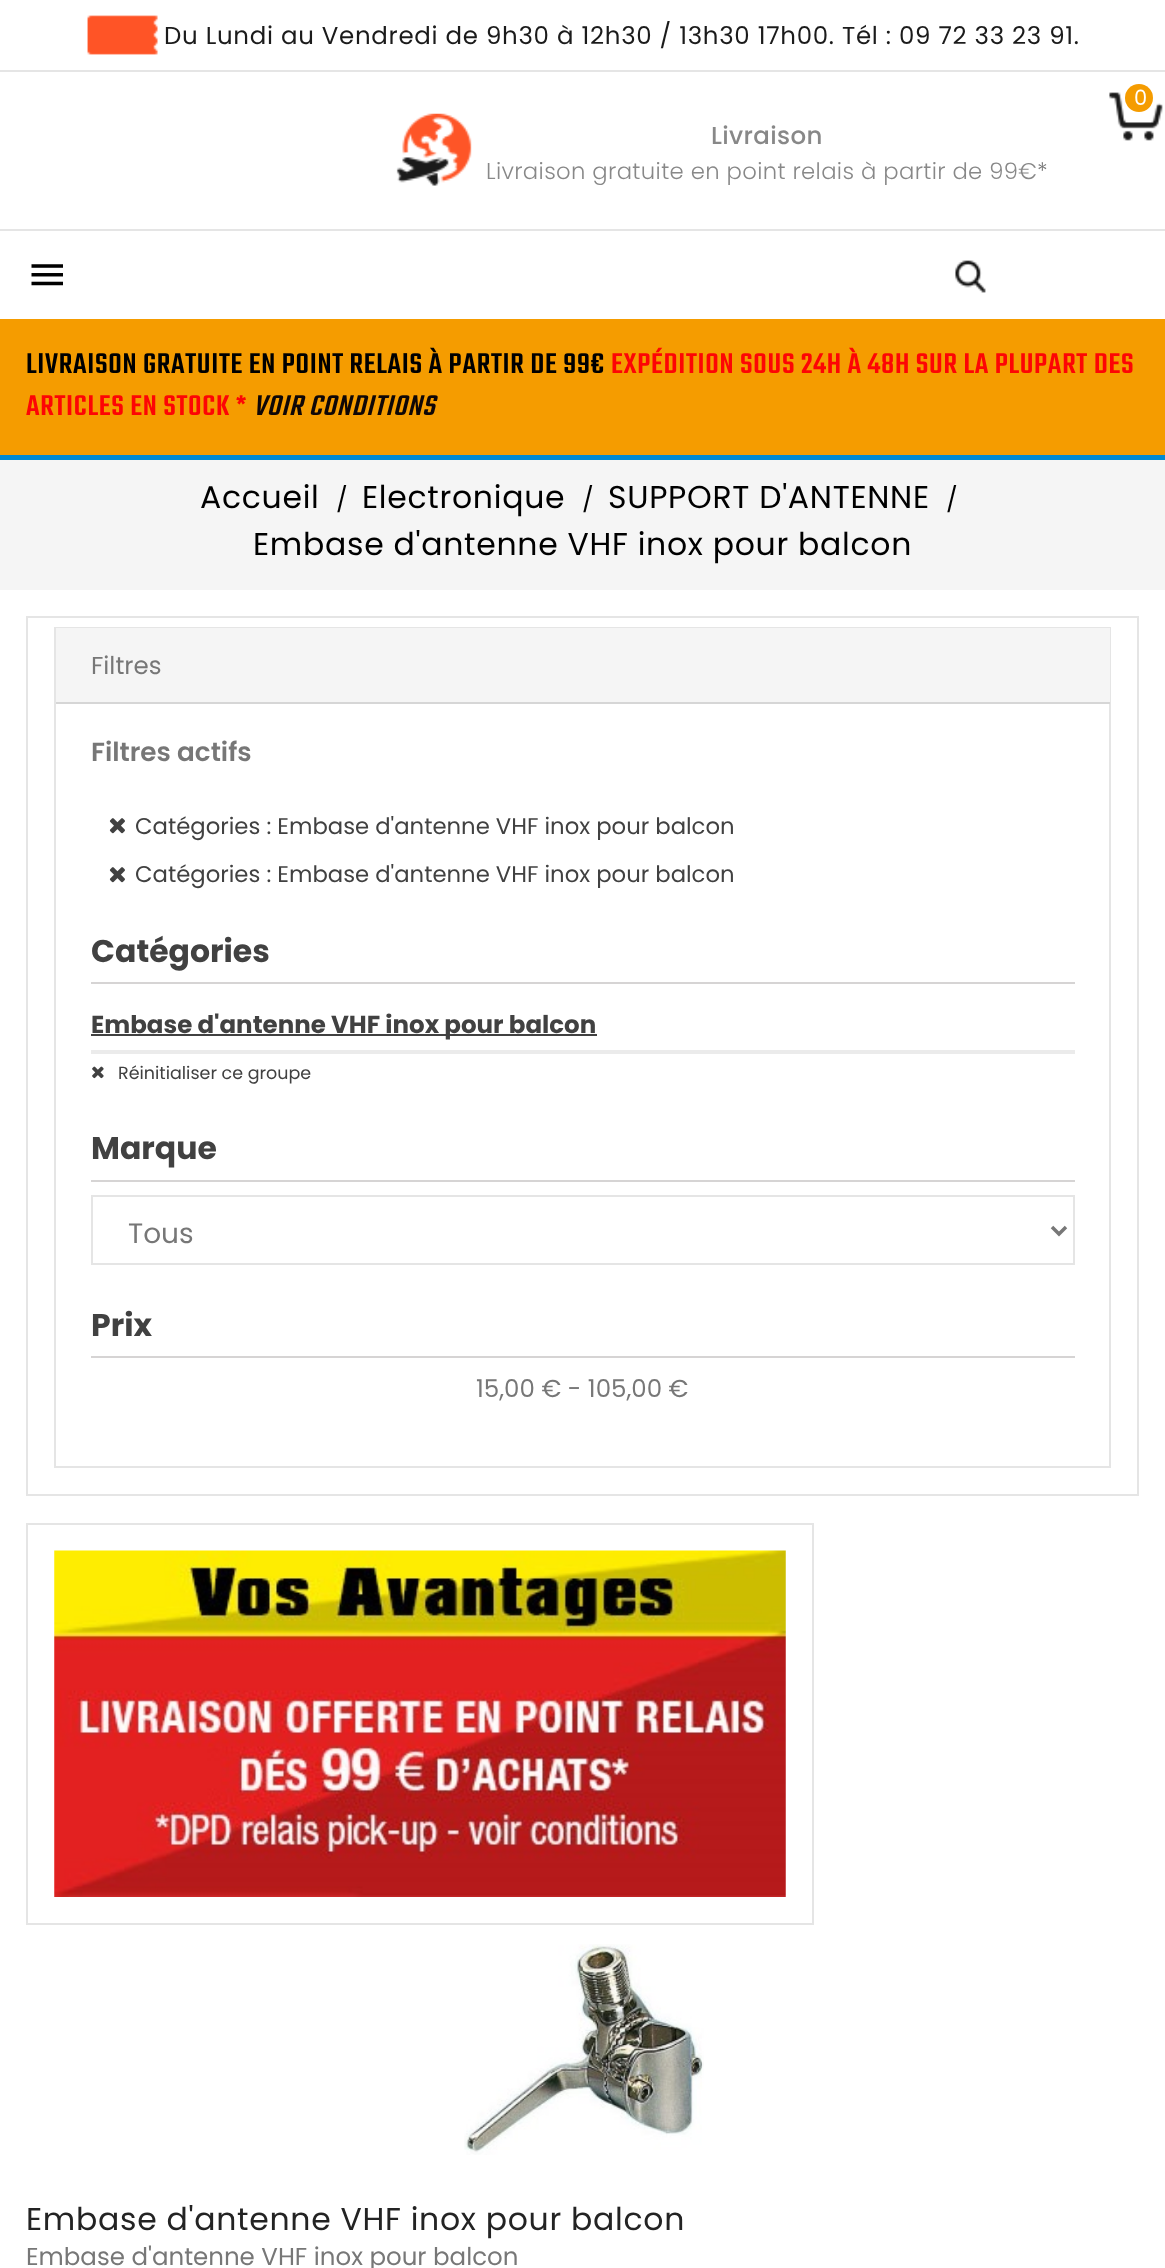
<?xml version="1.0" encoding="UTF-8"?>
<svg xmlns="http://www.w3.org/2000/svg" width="1165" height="2268">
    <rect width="100%" height="100%" fill="#FFFFFF"/>
    <rect x="0" y="70" width="1165" height="2" fill="#E5E5E5"/>
    <image x="87" y="15" width="71" height="40" href="img_01.png"/>
    <text x="164" y="44" font-family="Poppins" font-size="24.5" letter-spacing="0.7" fill="#1B1B1B">Du Lundi au Vendredi de 9h30 à 12h30 / 13h30 17h00. Tél : 09 72 33 23 91.</text>
    <image x="1109" y="92" width="54" height="49" href="img_02.png"/>
    <circle cx="1139" cy="98" r="14" fill="#F59C00"/>
    <text x="1134" y="105" font-family="Poppins" font-size="21" fill="#FFFFFF">0</text>
    <image x="396" y="113" width="76" height="73" href="img_03.png"/>
    <text x="711" y="144" font-family="Poppins" font-size="24.5" font-weight="500" letter-spacing="0.35" fill="#888888">Livraison</text>
    <text x="486" y="179" font-family="Poppins" font-size="22.75" font-weight="300" letter-spacing="0.35" fill="#888888">Livraison gratuite en point relais à partir de 99€</text>
    <text x="1037" y="179" font-family="Poppins" font-size="22.75" font-weight="300" letter-spacing="0.35" fill="#777777">*</text>
    <rect x="0" y="229" width="1165" height="2" fill="#E5E5E5"/>
    <image x="31" y="264" width="32" height="22" href="img_04.png"/>
    <image x="955" y="260" width="31" height="33" href="img_05.png"/>
    <rect x="0" y="455" width="1165" height="5" fill="#0089D1"/>
    <rect x="0" y="319" width="1165" height="136" fill="#F59C00"/>
    <text x="26" y="373" font-family="Teko" font-size="31.5" font-weight="500" letter-spacing="0.7" fill="#000000">LIVRAISON GRATUITE EN POINT RELAIS À PARTIR DE 99€</text>
    <text x="611" y="373" font-family="Teko" font-size="31.5" font-weight="500" letter-spacing="0.7" fill="#FD0505">EXPÉDITION SOUS 24H À 48H SUR LA PLUPART DES</text>
    <text x="26" y="415" font-family="Teko" font-size="31.5" font-weight="500" letter-spacing="0.7" fill="#FD0505">ARTICLES EN STOCK *</text>
    <text x="253" y="415" font-family="Teko" font-size="31.5" font-weight="500" font-style="italic" letter-spacing="0.7" fill="#0F0707">VOIR CONDITIONS</text>
    <rect x="0" y="460" width="1165" height="130" fill="#F5F5F5"/>
    <text x="200" y="508" font-family="Poppins" font-size="31.5" letter-spacing="0.7" fill="#000000">Accueil</text>
    <text x="336" y="508" font-family="Poppins" font-size="24.5" fill="#000000">/</text>
    <text x="362" y="508" font-family="Poppins" font-size="31.5" letter-spacing="0.7" fill="#000000">Electronique</text>
    <text x="582" y="508" font-family="Poppins" font-size="24.5" fill="#000000">/</text>
    <text x="608" y="508" font-family="Poppins" font-size="31.5" letter-spacing="0.7" fill="#000000">SUPPORT D'ANTENNE</text>
    <text x="946" y="508" font-family="Poppins" font-size="24.5" fill="#000000">/</text>
    <text x="253" y="555" font-family="Poppins" font-size="31.5" letter-spacing="0.7" fill="#000000">Embase d'antenne VHF inox pour balcon</text>
    <rect x="27" y="617" width="1111" height="878" fill="none" stroke="#E5E5E5" stroke-width="2"/>
    <rect x="55" y="628" width="1055" height="839" fill="none" stroke="#E5E5E5" stroke-width="2"/>
    <rect x="56" y="628" width="1054" height="74" fill="#F5F5F5"/>
    <rect x="56" y="702" width="1054" height="2" fill="#D6D6D6"/>
    <text x="91" y="674" font-family="Poppins" font-size="24.5" fill="#777777">Filtres</text>
    <text x="91" y="761" font-family="Poppins" font-size="26.25" font-weight="600" fill="#777777">Filtres actifs</text>
    <image x="109" y="818" width="16" height="16" href="img_06.png"/>
    <text x="135" y="834" font-family="Poppins" font-size="22.75" fill="#414141">Catégories : Embase d'antenne VHF inox pour balcon</text>
    <image x="109" y="867" width="16" height="16" href="img_06.png"/>
    <text x="135" y="882" font-family="Poppins" font-size="22.75" fill="#414141">Catégories : Embase d'antenne VHF inox pour balcon</text>
    <rect x="91" y="982" width="984" height="2" fill="#D6D4D4"/>
    <text x="91" y="962" font-family="Poppins" font-size="31.5" font-weight="700" fill="#414141">Catégories</text>
    <rect x="91" y="1050" width="984" height="4" fill="#EBEBEB"/>
    <rect x="91" y="1034" width="506" height="2" fill="#414141"/>
    <text x="91" y="1033" font-family="Poppins" font-size="24.5" font-weight="700" fill="#414141">Embase d'antenne VHF inox pour balcon</text>
    <image x="92" y="1066" width="12" height="13" href="img_07.png"/>
    <text x="118" y="1079" font-family="Poppins" font-size="17.5" fill="#414141">Réinitialiser ce groupe</text>
    <rect x="91" y="1180" width="984" height="2" fill="#D6D4D4"/>
    <text x="91" y="1159" font-family="Poppins" font-size="31.5" font-weight="700" fill="#414141">Marque</text>
    <rect x="92" y="1196" width="982" height="68" fill="none" stroke="#E5E5E5" stroke-width="2"/>
    <path d="M 1052 1227 L 1059 1234 L 1066 1227" fill="none" stroke="#777777" stroke-width="3.5"/>
    <text x="128" y="1243" font-family="Poppins" font-size="28" fill="#777777">Tous</text>
    <rect x="91" y="1356" width="984" height="2" fill="#D6D4D4"/>
    <text x="91" y="1336" font-family="Poppins" font-size="31.5" font-weight="700" fill="#414141">Prix</text>
    <text x="476" y="1397" font-family="Poppins" font-size="24.5" fill="#777777">15,00 € - 105,00 €</text>
    <rect x="27" y="1524" width="786" height="400" fill="none" stroke="#E5E5E5" stroke-width="2"/>
    <image x="54" y="1550" width="732" height="347" href="img_08.png"/>
    <image x="464" y="1944" width="240" height="211" href="img_09.png"/>
    <text x="26" y="2230" font-family="Poppins" font-size="31.5" letter-spacing="0.7" fill="#232323">Embase d'antenne VHF inox pour balcon</text>
    <text x="26" y="2265" font-family="Poppins" font-size="24.5" fill="#777777">Embase d'antenne VHF inox pour balcon</text>
</svg>
